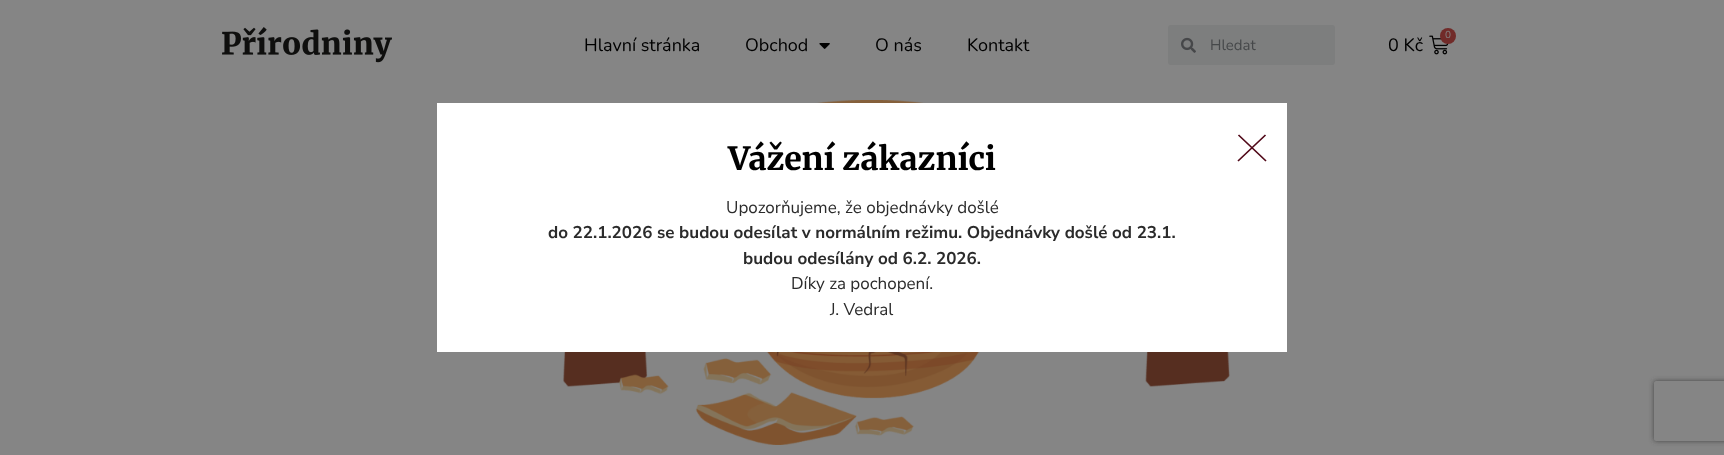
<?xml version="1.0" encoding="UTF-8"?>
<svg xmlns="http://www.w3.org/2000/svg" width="1724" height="455">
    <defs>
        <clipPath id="clip1"><path d="M 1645 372 H 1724 V 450 H 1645 Z M 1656 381 H 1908 C 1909 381 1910 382 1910 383 V 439 C 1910 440 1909 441 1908 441 H 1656 C 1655 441 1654 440 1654 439 V 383 C 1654 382 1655 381 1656 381 Z" clip-rule="evenodd"/></clipPath>
        <filter id="blur1" x="-50%" y="-200%" width="200%" height="500%"><feGaussianBlur stdDeviation="2.5"/></filter>
    </defs>
    <rect width="100%" height="100%" fill="#858585"/>
    <image x="222" y="27" width="170" height="36" href="img_01.png"/>
    <text x="584" y="51" font-family="Nunito" font-size="18" fill="#000000">Hlavní stránka</text>
    <text x="745" y="51" font-family="Nunito" font-size="18" fill="#000000">Obchod</text>
    <image x="819" y="43" width="11" height="6" href="img_02.png"/>
    <text x="875" y="51" font-family="Nunito" font-size="18" fill="#000000">O nás</text>
    <text x="967" y="51" font-family="Nunito" font-size="18" fill="#000000">Kontakt</text>
    <rect x="1168" y="25" width="167" height="40" rx="3" fill="#7D7E7E"/>
    <image x="1181" y="37" width="15" height="16" href="img_03.png"/>
    <text x="1210" y="50" font-family="Nunito Sans" font-size="15" fill="#46484A">Hledat</text>
    <image x="1429" y="35" width="20" height="20" href="img_04.png"/>
    <circle cx="1448" cy="36" r="8" fill="#712B29"/>
    <text x="1445" y="38" font-family="Nunito" font-size="10" fill="#858585">0</text>
    <text x="1388" y="51" font-family="Nunito" font-size="18" fill="#000000">0 Kč</text>
    <image x="563" y="100" width="667" height="345" href="img_05.png"/>
    <rect x="437" y="103" width="850" height="249" fill="#FFFFFF"/>
    <text x="728" y="170" font-family="Merriweather" font-size="32" font-weight="800" fill="#000000">Vážení zákazníci</text>
    <path d="M 1238.5 135 L 1266 161 M 1265.5 135 L 1238 161" fill="none" stroke="#510919" stroke-width="1.7"/>
    <text x="726" y="213" font-family="Nunito Sans" font-size="17" fill="#2B2B2B">Upozorňujeme, že objednávky došlé</text>
    <text x="548" y="238" font-family="Nunito Sans" font-size="17" font-weight="700" fill="#2B2B2B">do 22.1.2026 se budou odesílat v normálním režimu. Objednávky došlé od 23.1.</text>
    <text x="743" y="264" font-family="Nunito Sans" font-size="17" font-weight="700" fill="#2B2B2B">budou odesílány od 6.2. 2026.</text>
    <text x="791" y="289" font-family="Nunito Sans" font-size="17" fill="#2B2B2B">Díky za pochopení.</text>
    <text x="830" y="315" font-family="Nunito Sans" font-size="17" fill="#2B2B2B">J. Vedral</text>
    <g clip-path="url(#clip1)">
        <rect x="1654" y="381" width="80" height="60" rx="2" fill="#434343" filter="url(#blur1)"/>
    </g>
</svg>
